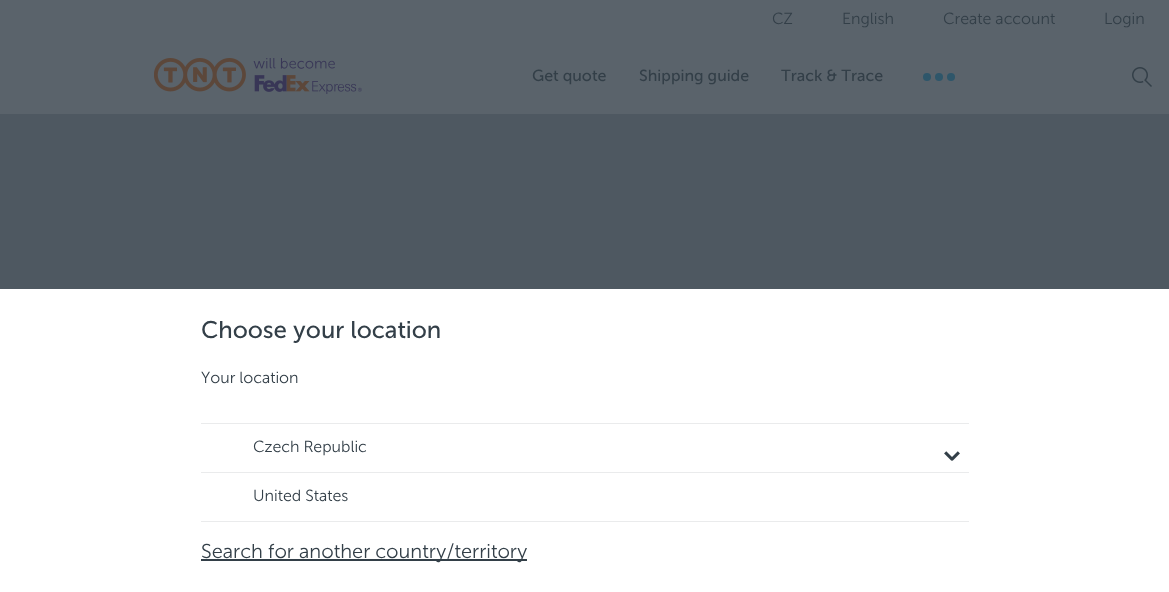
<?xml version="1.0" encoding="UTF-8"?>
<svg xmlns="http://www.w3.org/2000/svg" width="1169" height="592">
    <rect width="100%" height="100%" fill="#5A636B"/>
    <text x="772" y="24" font-family="'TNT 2'" font-size="16" fill="#333F48">CZ</text>
    <text x="842" y="24" font-family="'TNT 2'" font-size="16" fill="#333F48">English</text>
    <text x="943" y="24" font-family="'TNT 2'" font-size="16" fill="#333F48">Create account</text>
    <text x="1104" y="24" font-family="'TNT 2'" font-size="16" fill="#333F48">Login</text>
    <image x="154" y="58" width="208" height="36" href="img_01.png"/>
    <text x="532" y="81" font-family="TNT" font-size="16" fill="#333F48">Get quote</text>
    <text x="639" y="81" font-family="TNT" font-size="16" fill="#333F48">Shipping guide</text>
    <text x="781" y="81" font-family="TNT" font-size="16" fill="#333F48">Track &amp; Trace</text>
    <circle cx="927" cy="77" r="4" fill="#2E566A"/>
    <circle cx="939" cy="77" r="4" fill="#2E566A"/>
    <circle cx="951" cy="77" r="4" fill="#2E566A"/>
    <image x="1132" y="67" width="20" height="20" href="img_02.png"/>
    <rect x="0" y="114" width="1169" height="175" fill="#4E5861"/>
    <rect x="0" y="289" width="1169" height="303" fill="#FFFFFF"/>
    <text x="201" y="338" font-family="TNT" font-size="24" fill="#333F48">Choose your location</text>
    <text x="201" y="383" font-family="'TNT 2'" font-size="16" fill="#333F48">Your location</text>
    <rect x="201" y="423" width="768" height="1" fill="#EAEBEC"/>
    <rect x="201" y="521" width="768" height="1" fill="#EAEBEC"/>
    <rect x="201" y="472" width="768" height="1" fill="#EAEBEC"/>
    <text x="253" y="452" font-family="'TNT 2'" font-size="16" fill="#333F48">Czech Republic</text>
    <image x="944" y="451" width="16" height="10" href="img_03.png"/>
    <text x="253" y="501" font-family="'TNT 2'" font-size="16" fill="#333F48">United States</text>
    <rect x="201" y="559" width="326" height="2" fill="#333F48"/>
    <text x="201" y="558" font-family="'TNT 2'" font-size="20" fill="#333F48">Search for another country/territory</text>
</svg>
